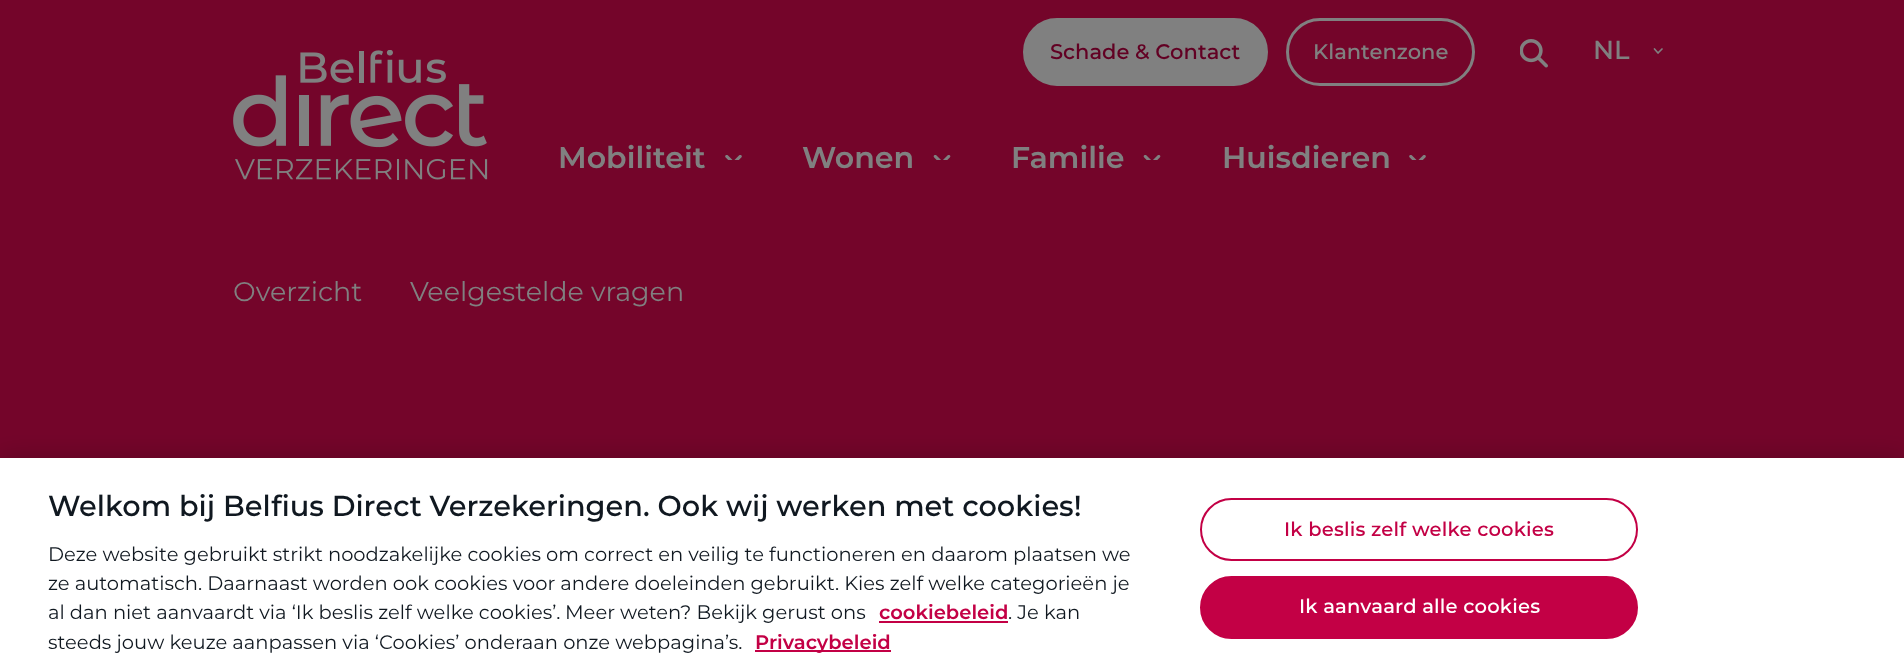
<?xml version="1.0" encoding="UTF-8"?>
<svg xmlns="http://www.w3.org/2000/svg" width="1904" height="672">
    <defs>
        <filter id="blur1" x="-50%" y="-200%" width="200%" height="500%"><feGaussianBlur stdDeviation="13.5"/></filter>
    </defs>
    <rect width="100%" height="100%" fill="#74052A"/>
    <image x="233" y="50" width="255" height="130" href="img_01.png"/>
    <rect x="1024.5" y="19.5" width="242" height="65" rx="32.5" fill="#808080" stroke="#808080" stroke-width="3"/>
    <text x="1050" y="59" font-family="'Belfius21'" font-size="21" font-weight="600" fill="#620023">Schade &amp; Contact</text>
    <rect x="1287.5" y="19.5" width="186" height="65" rx="32.5" fill="none" stroke="#808080" stroke-width="3"/>
    <text x="1313" y="59" font-family="'Belfius21'" font-size="21" font-weight="600" fill="#808080">Klantenzone</text>
    <image x="1520" y="39" width="28" height="29" href="img_02.png"/>
    <text x="1593" y="59" font-family="'Belfius21'" font-size="26" font-weight="600" fill="#808080">NL</text>
    <path d="M 1654.5 49 L 1658 53 L 1662 49" fill="none" stroke="#808080" stroke-width="1.7" stroke-linecap="round" stroke-linejoin="round"/>
    <text x="558" y="168" font-family="'Belfius21'" font-size="30" font-weight="700" fill="#808080">Mobiliteit</text>
    <image x="725" y="155" width="17" height="5" href="img_03.png"/>
    <text x="802" y="168" font-family="'Belfius21'" font-size="30" font-weight="700" fill="#808080">Wonen</text>
    <image x="933" y="155" width="18" height="5" href="img_04.png"/>
    <text x="1011" y="168" font-family="'Belfius21'" font-size="30" font-weight="700" fill="#808080">Familie</text>
    <image x="1143" y="155" width="18" height="5" href="img_04.png"/>
    <text x="1222" y="168" font-family="'Belfius21'" font-size="30" font-weight="700" fill="#808080">Huisdieren</text>
    <image x="1409" y="155" width="17" height="5" href="img_03.png"/>
    <text x="233" y="301" font-family="'Belfius21'" font-size="27" fill="#808080">Overzicht</text>
    <text x="410" y="301" font-family="'Belfius21'" font-size="27" fill="#808080">Veelgestelde vragen</text>
    <rect x="0" y="458" width="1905" height="214" fill="#000000" fill-opacity="0.2" filter="url(#blur1)"/>
    <rect x="0" y="458" width="1904" height="214" fill="#FFFFFF"/>
    <text x="48" y="516" font-family="'Belfius21'" font-size="28.8" font-weight="600" fill="#101820">Welkom bij Belfius Direct Verzekeringen. Ook wij werken met cookies!</text>
    <text font-family="'Belfius21'" font-size="19.5" fill="#101820">
        <tspan x="48" y="561">Deze website gebruikt strikt noodzakelijke cookies om correct en veilig te functioneren en daarom plaatsen we</tspan>
        <tspan x="48" y="590">ze automatisch. Daarnaast worden ook cookies voor andere doeleinden gebruikt. Kies zelf welke categorieën je</tspan>
        <tspan x="48" y="619">al dan niet aanvaardt via ‘Ik beslis zelf welke cookies’.</tspan>
    </text>
    <text x="565" y="619" font-family="'Belfius21'" font-size="19.5" fill="#101820">Meer weten? Bekijk gerust ons</text>
    <text x="879" y="619" font-family="'Belfius21'" font-size="19.5" font-weight="700" fill="#C30045">cookiebeleid</text>
    <rect x="879" y="621" width="129" height="2" fill="#C30045"/>
    <text x="1008" y="619" font-family="'Belfius21'" font-size="19.5" fill="#101820">. Je kan</text>
    <text x="48" y="649" font-family="'Belfius21'" font-size="19.5" fill="#101820">steeds jouw keuze aanpassen via ‘Cookies’ onderaan onze webpagina’s.</text>
    <rect x="755" y="650" width="136" height="2" fill="#C30045"/>
    <text x="755" y="649" font-family="'Belfius21'" font-size="19.5" font-weight="700" fill="#C30045">Privacybeleid</text>
    <rect x="1201" y="499" width="436" height="61" rx="30.5" fill="none" stroke="#C30045" stroke-width="2"/>
    <text x="1284" y="536" font-family="'Belfius21'" font-size="19.5" font-weight="600" letter-spacing="0.2" fill="#C30045">Ik beslis zelf welke cookies</text>
    <rect x="1201" y="577" width="436" height="61" rx="30.5" fill="#C30045" stroke="#C30045" stroke-width="2"/>
    <text x="1299" y="613" font-family="'Belfius21'" font-size="19.5" font-weight="600" letter-spacing="0.2" fill="#FFFFFF">Ik aanvaard alle cookies</text>
</svg>
